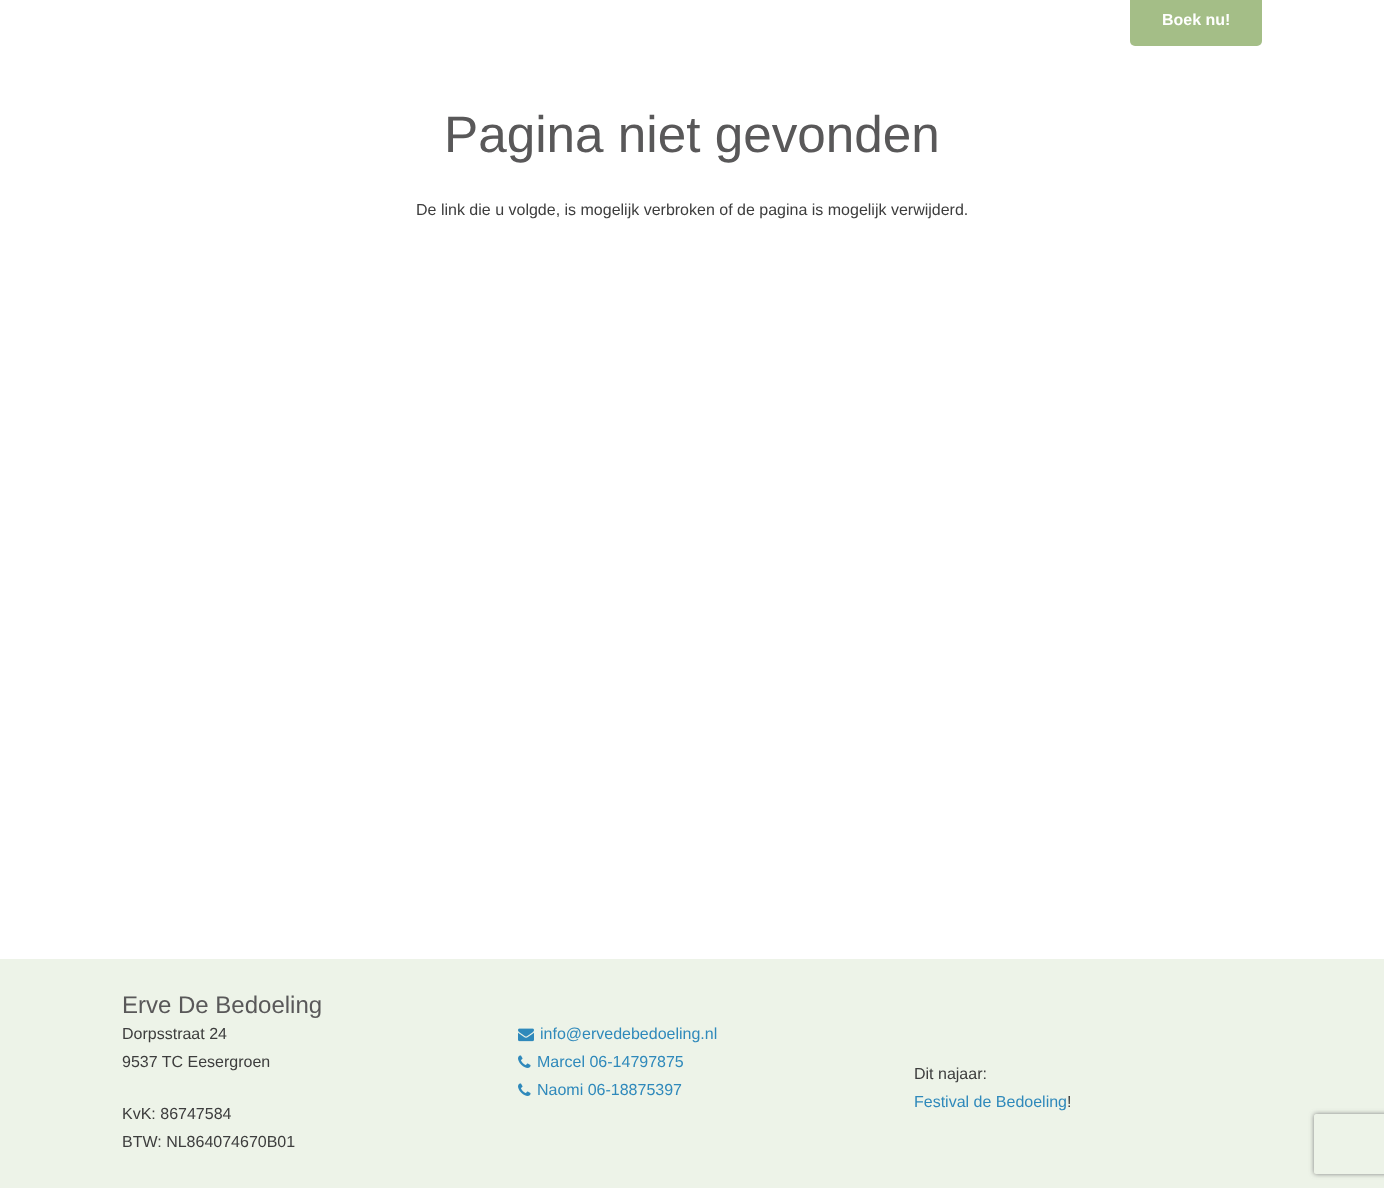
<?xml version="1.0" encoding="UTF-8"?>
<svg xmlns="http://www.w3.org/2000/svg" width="1384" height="1188">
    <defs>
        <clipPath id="clip1"><path d="M 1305 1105 H 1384 V 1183 H 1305 Z M 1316 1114 H 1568 C 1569 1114 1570 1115 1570 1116 V 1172 C 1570 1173 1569 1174 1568 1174 H 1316 C 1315 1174 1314 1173 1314 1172 V 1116 C 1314 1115 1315 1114 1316 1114 Z" clip-rule="evenodd"/></clipPath>
        <filter id="blur1" x="-50%" y="-200%" width="200%" height="500%"><feGaussianBlur stdDeviation="2.5"/></filter>
    </defs>
    <rect width="100%" height="100%" fill="#FFFFFF"/>
    <rect x="1130" y="-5" width="132" height="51" rx="5" fill="#A4BE87"/>
    <text x="1162" y="25" font-family="Liberation Sans" font-size="16" font-weight="700" fill="#FFFFFF">Boek nu!</text>
    <text x="444" y="152" font-family="Liberation Sans" font-size="51.25" fill="#595859">Pagina niet gevonden</text>
    <text x="416" y="215" font-family="Liberation Sans" font-size="16" fill="#3D3D3D">De link die u volgde, is mogelijk verbroken of de pagina is mogelijk verwijderd.</text>
    <rect x="0" y="959" width="1384" height="229" fill="#EDF3E8"/>
    <text x="122" y="1013" font-family="Liberation Sans" font-size="24" fill="#595859">Erve De Bedoeling</text>
    <text font-family="Liberation Sans" font-size="16" fill="#3D3D3D">
        <tspan x="122" y="1039">Dorpsstraat 24</tspan>
        <tspan x="122" y="1067">9537 TC Eesergroen</tspan>
    </text>
    <text font-family="Liberation Sans" font-size="16" fill="#3D3D3D">
        <tspan x="122" y="1119">KvK: 86747584</tspan>
        <tspan x="122" y="1147">BTW: NL864074670B01</tspan>
    </text>
    <image x="518" y="1028" width="16" height="14" href="img_01.png"/>
    <text x="540" y="1039" font-family="Liberation Sans" font-size="16" fill="#2F89BB">info@ervedebedoeling.nl</text>
    <image x="518" y="1055" width="13" height="13" href="img_02.png"/>
    <text x="537" y="1067" font-family="Liberation Sans" font-size="16" fill="#2F89BB">Marcel 06-14797875</text>
    <image x="518" y="1083" width="13" height="13" href="img_02.png"/>
    <text x="537" y="1095" font-family="Liberation Sans" font-size="16" fill="#2F89BB">Naomi 06-18875397</text>
    <text x="914" y="1079" font-family="Liberation Sans" font-size="16" fill="#3D3D3D">Dit najaar:</text>
    <text x="914" y="1107" font-family="Liberation Sans" font-size="16" fill="#2F89BB">Festival de Bedoeling</text>
    <text x="1067" y="1107" font-family="Liberation Sans" font-size="16" fill="#3D3D3D">!</text>
    <g clip-path="url(#clip1)">
        <rect x="1314" y="1114" width="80" height="60" rx="2" fill="#808080" filter="url(#blur1)"/>
    </g>
</svg>
